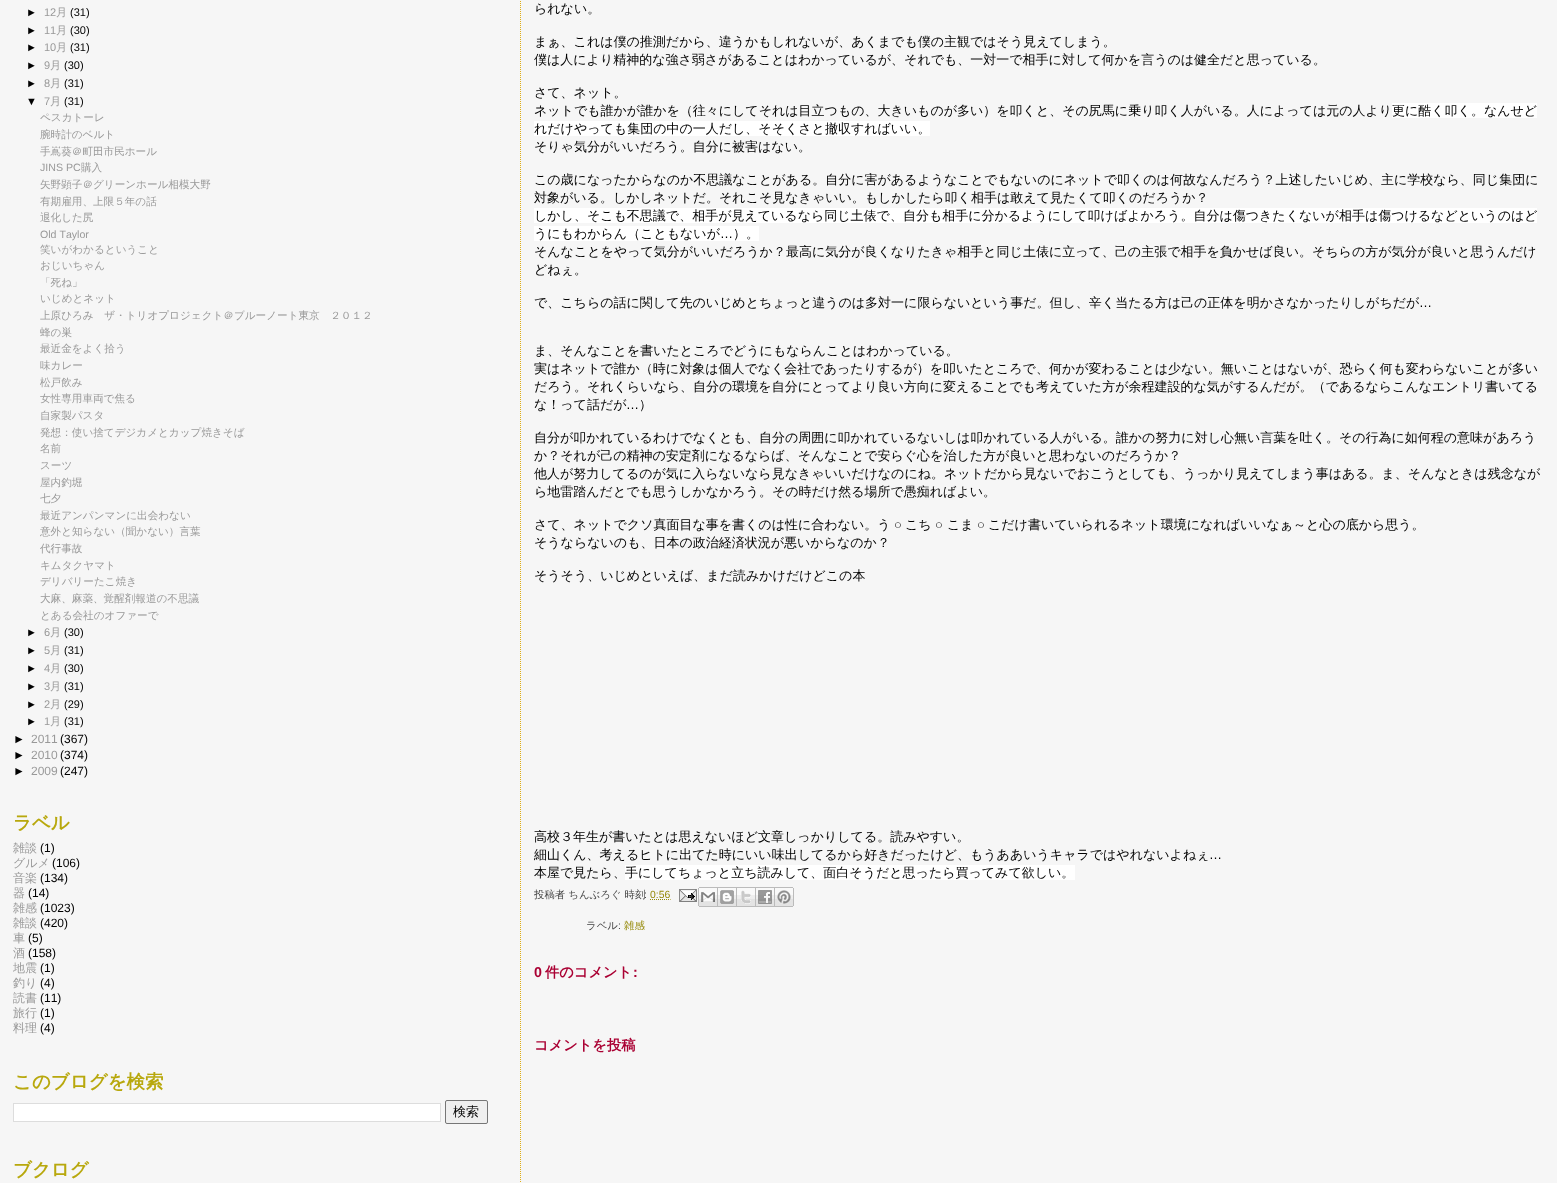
<?xml version="1.0" encoding="UTF-8"?>
<svg xmlns="http://www.w3.org/2000/svg" width="1557" height="1183">
    <style>*{font-kerning:none!important;font-variant-ligatures:none!important}</style>
    <rect width="100%" height="100%" fill="#F6F6F6"/>
    <text x="26" y="16" font-family="Liberation Sans" font-size="11" fill="#000000">►</text>
    <text x="44" y="16" font-family="Liberation Sans" font-size="11" fill="#999999">12</text>
    <text x="56" y="16" font-family="WenQuanYi Zen Hei" font-size="11" font-weight="500" fill="#999999">月</text>
    <text x="70" y="16" font-family="Liberation Sans" font-size="11" fill="#000000">(31)</text>
    <text x="26" y="34" font-family="Liberation Sans" font-size="11" fill="#000000">►</text>
    <text x="44" y="34" font-family="Liberation Sans" font-size="11" fill="#999999">11</text>
    <text x="56" y="34" font-family="WenQuanYi Zen Hei" font-size="11" font-weight="500" fill="#999999">月</text>
    <text x="70" y="34" font-family="Liberation Sans" font-size="11" fill="#000000">(30)</text>
    <text x="26" y="51" font-family="Liberation Sans" font-size="11" fill="#000000">►</text>
    <text x="44" y="51" font-family="Liberation Sans" font-size="11" fill="#999999">10</text>
    <text x="56" y="51" font-family="WenQuanYi Zen Hei" font-size="11" font-weight="500" fill="#999999">月</text>
    <text x="70" y="51" font-family="Liberation Sans" font-size="11" fill="#000000">(31)</text>
    <text x="26" y="69" font-family="Liberation Sans" font-size="11" fill="#000000">►</text>
    <text x="44" y="69" font-family="Liberation Sans" font-size="11" fill="#999999">9</text>
    <text x="50" y="69" font-family="WenQuanYi Zen Hei" font-size="11" font-weight="500" fill="#999999">月</text>
    <text x="64" y="69" font-family="Liberation Sans" font-size="11" fill="#000000">(30)</text>
    <text x="26" y="87" font-family="Liberation Sans" font-size="11" fill="#000000">►</text>
    <text x="44" y="87" font-family="Liberation Sans" font-size="11" fill="#999999">8</text>
    <text x="50" y="87" font-family="WenQuanYi Zen Hei" font-size="11" font-weight="500" fill="#999999">月</text>
    <text x="64" y="87" font-family="Liberation Sans" font-size="11" fill="#000000">(31)</text>
    <text x="26" y="105" font-family="Liberation Sans" font-size="11" fill="#000000">▼</text>
    <text x="44" y="105" font-family="Liberation Sans" font-size="11" fill="#999999">7</text>
    <text x="50" y="105" font-family="WenQuanYi Zen Hei" font-size="11" font-weight="500" fill="#999999">月</text>
    <text x="64" y="105" font-family="Liberation Sans" font-size="11" fill="#000000">(31)</text>
    <text font-family="WenQuanYi Zen Hei" font-size="10.6" font-weight="500" fill="#999999">
        <tspan x="40" y="121">ペスカトーレ</tspan>
        <tspan x="40" y="138">腕時計のベルト</tspan>
        <tspan x="40" y="155">手嶌葵＠町田市民ホール</tspan>
    </text>
    <text x="40" y="171" font-family="Liberation Sans" font-size="10.6" fill="#999999">JINS PC</text>
    <text x="81" y="171" font-family="WenQuanYi Zen Hei" font-size="10.6" font-weight="500" fill="#999999">購入</text>
    <text font-family="WenQuanYi Zen Hei" font-size="10.6" font-weight="500" fill="#999999">
        <tspan x="40" y="188">矢野顕子＠グリーンホール相模大野</tspan>
        <tspan x="40" y="205">有期雇用、上限５年の話</tspan>
        <tspan x="40" y="221">退化した尻</tspan>
    </text>
    <text x="40" y="238" font-family="Liberation Sans" font-size="10.6" fill="#999999">Old Taylor</text>
    <text font-family="WenQuanYi Zen Hei" font-size="10.6" font-weight="500" fill="#999999">
        <tspan x="40" y="253">笑いがわかるということ</tspan>
        <tspan x="40" y="269">おじいちゃん</tspan>
        <tspan x="40" y="286">「死ね」</tspan>
        <tspan x="40" y="302">いじめとネット</tspan>
        <tspan x="40" y="319">上原ひろみ　ザ・トリオプロジェクト＠ブルーノート東京　２０１２</tspan>
        <tspan x="40" y="336">蜂の巣</tspan>
        <tspan x="40" y="352">最近金をよく拾う</tspan>
        <tspan x="40" y="369">味カレー</tspan>
        <tspan x="40" y="386">松戸飲み</tspan>
        <tspan x="40" y="402">女性専用車両で焦る</tspan>
        <tspan x="40" y="419">自家製パスタ</tspan>
        <tspan x="40" y="436">発想：使い捨てデジカメとカップ焼きそば</tspan>
        <tspan x="40" y="452">名前</tspan>
        <tspan x="40" y="469">スーツ</tspan>
        <tspan x="40" y="486">屋内釣堀</tspan>
        <tspan x="40" y="502">七夕</tspan>
        <tspan x="40" y="519">最近アンパンマンに出会わない</tspan>
        <tspan x="40" y="535">意外と知らない（聞かない）言葉</tspan>
        <tspan x="40" y="552">代行事故</tspan>
        <tspan x="40" y="569">キムタクヤマト</tspan>
        <tspan x="40" y="585">デリバリーたこ焼き</tspan>
        <tspan x="40" y="602">大麻、麻薬、覚醒剤報道の不思議</tspan>
        <tspan x="40" y="619">とある会社のオファーで</tspan>
    </text>
    <text x="26" y="636" font-family="Liberation Sans" font-size="11" fill="#000000">►</text>
    <text x="44" y="636" font-family="Liberation Sans" font-size="11" fill="#999999">6</text>
    <text x="50" y="636" font-family="WenQuanYi Zen Hei" font-size="11" font-weight="500" fill="#999999">月</text>
    <text x="64" y="636" font-family="Liberation Sans" font-size="11" fill="#000000">(30)</text>
    <text x="26" y="654" font-family="Liberation Sans" font-size="11" fill="#000000">►</text>
    <text x="44" y="654" font-family="Liberation Sans" font-size="11" fill="#999999">5</text>
    <text x="50" y="654" font-family="WenQuanYi Zen Hei" font-size="11" font-weight="500" fill="#999999">月</text>
    <text x="64" y="654" font-family="Liberation Sans" font-size="11" fill="#000000">(31)</text>
    <text x="26" y="672" font-family="Liberation Sans" font-size="11" fill="#000000">►</text>
    <text x="44" y="672" font-family="Liberation Sans" font-size="11" fill="#999999">4</text>
    <text x="50" y="672" font-family="WenQuanYi Zen Hei" font-size="11" font-weight="500" fill="#999999">月</text>
    <text x="64" y="672" font-family="Liberation Sans" font-size="11" fill="#000000">(30)</text>
    <text x="26" y="690" font-family="Liberation Sans" font-size="11" fill="#000000">►</text>
    <text x="44" y="690" font-family="Liberation Sans" font-size="11" fill="#999999">3</text>
    <text x="50" y="690" font-family="WenQuanYi Zen Hei" font-size="11" font-weight="500" fill="#999999">月</text>
    <text x="64" y="690" font-family="Liberation Sans" font-size="11" fill="#000000">(31)</text>
    <text x="26" y="708" font-family="Liberation Sans" font-size="11" fill="#000000">►</text>
    <text x="44" y="708" font-family="Liberation Sans" font-size="11" fill="#999999">2</text>
    <text x="50" y="708" font-family="WenQuanYi Zen Hei" font-size="11" font-weight="500" fill="#999999">月</text>
    <text x="64" y="708" font-family="Liberation Sans" font-size="11" fill="#000000">(29)</text>
    <text x="26" y="725" font-family="Liberation Sans" font-size="11" fill="#000000">►</text>
    <text x="44" y="725" font-family="Liberation Sans" font-size="11" fill="#999999">1</text>
    <text x="50" y="725" font-family="WenQuanYi Zen Hei" font-size="11" font-weight="500" fill="#999999">月</text>
    <text x="64" y="725" font-family="Liberation Sans" font-size="11" fill="#000000">(31)</text>
    <text x="13" y="743" font-family="Liberation Sans" font-size="12" fill="#000000">►</text>
    <text x="31" y="743" font-family="Liberation Sans" font-size="12" fill="#999999">2011</text>
    <text x="60" y="743" font-family="Liberation Sans" font-size="12" fill="#000000">(367)</text>
    <text x="13" y="759" font-family="Liberation Sans" font-size="12" fill="#000000">►</text>
    <text x="31" y="759" font-family="Liberation Sans" font-size="12" fill="#999999">2010</text>
    <text x="60" y="759" font-family="Liberation Sans" font-size="12" fill="#000000">(374)</text>
    <text x="13" y="775" font-family="Liberation Sans" font-size="12" fill="#000000">►</text>
    <text x="31" y="775" font-family="Liberation Sans" font-size="12" fill="#999999">2009</text>
    <text x="60" y="775" font-family="Liberation Sans" font-size="12" fill="#000000">(247)</text>
    <text x="13" y="829" font-family="WenQuanYi Zen Hei" font-size="18.5" font-weight="700" fill="#B8A80D">ラベル</text>
    <text x="13" y="852" font-family="WenQuanYi Zen Hei" font-size="12" font-weight="500" fill="#999999">雑談</text>
    <text x="40" y="852" font-family="Liberation Sans" font-size="12" fill="#000000">(1)</text>
    <text x="13" y="867" font-family="WenQuanYi Zen Hei" font-size="12" font-weight="500" fill="#999999">グルメ</text>
    <text x="52" y="867" font-family="Liberation Sans" font-size="12" fill="#000000">(106)</text>
    <text x="13" y="882" font-family="WenQuanYi Zen Hei" font-size="12" font-weight="500" fill="#999999">音楽</text>
    <text x="40" y="882" font-family="Liberation Sans" font-size="12" fill="#000000">(134)</text>
    <text x="13" y="897" font-family="WenQuanYi Zen Hei" font-size="12" font-weight="500" fill="#999999">器</text>
    <text x="28" y="897" font-family="Liberation Sans" font-size="12" fill="#000000">(14)</text>
    <text x="13" y="912" font-family="WenQuanYi Zen Hei" font-size="12" font-weight="500" fill="#999999">雑感</text>
    <text x="40" y="912" font-family="Liberation Sans" font-size="12" fill="#000000">(1023)</text>
    <text x="13" y="927" font-family="WenQuanYi Zen Hei" font-size="12" font-weight="500" fill="#999999">雑談</text>
    <text x="40" y="927" font-family="Liberation Sans" font-size="12" fill="#000000">(420)</text>
    <text x="13" y="942" font-family="WenQuanYi Zen Hei" font-size="12" font-weight="500" fill="#999999">車</text>
    <text x="28" y="942" font-family="Liberation Sans" font-size="12" fill="#000000">(5)</text>
    <text x="13" y="957" font-family="WenQuanYi Zen Hei" font-size="12" font-weight="500" fill="#999999">酒</text>
    <text x="28" y="957" font-family="Liberation Sans" font-size="12" fill="#000000">(158)</text>
    <text x="13" y="972" font-family="WenQuanYi Zen Hei" font-size="12" font-weight="500" fill="#999999">地震</text>
    <text x="40" y="972" font-family="Liberation Sans" font-size="12" fill="#000000">(1)</text>
    <text x="13" y="987" font-family="WenQuanYi Zen Hei" font-size="12" font-weight="500" fill="#999999">釣り</text>
    <text x="40" y="987" font-family="Liberation Sans" font-size="12" fill="#000000">(4)</text>
    <text x="13" y="1002" font-family="WenQuanYi Zen Hei" font-size="12" font-weight="500" fill="#999999">読書</text>
    <text x="40" y="1002" font-family="Liberation Sans" font-size="12" fill="#000000">(11)</text>
    <text x="13" y="1017" font-family="WenQuanYi Zen Hei" font-size="12" font-weight="500" fill="#999999">旅行</text>
    <text x="40" y="1017" font-family="Liberation Sans" font-size="12" fill="#000000">(1)</text>
    <text x="13" y="1032" font-family="WenQuanYi Zen Hei" font-size="12" font-weight="500" fill="#999999">料理</text>
    <text x="40" y="1032" font-family="Liberation Sans" font-size="12" fill="#000000">(4)</text>
    <text x="13" y="1088" font-family="WenQuanYi Zen Hei" font-size="18.5" font-weight="700" fill="#B8A80D">このブログを検索</text>
    <rect x="13.5" y="1103.5" width="427" height="18" fill="#FFFFFF" stroke="#DDDDDD"/>
    <rect x="445.5" y="1100.5" width="42" height="23" rx="1.5" fill="#EFEFEF" stroke="#767676"/>
    <text x="453" y="1116" font-family="WenQuanYi Zen Hei" font-size="13" font-weight="500" fill="#000000">検索</text>
    <text x="13" y="1176" font-family="WenQuanYi Zen Hei" font-size="18.5" font-weight="700" fill="#B8A80D">ブクログ</text>
    <path d="M 520.5 -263 V 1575" fill="none" stroke="#E0AD12" stroke-dasharray="1 1"/>
    <text x="534" y="13" font-family="WenQuanYi Zen Hei" font-size="13" font-weight="500" fill="#000000">られない。</text>
    <text font-family="WenQuanYi Zen Hei" font-size="13" font-weight="500" fill="#000000">
        <tspan x="534" y="46">まぁ、これは僕の推測だから、違うかもしれないが、あくまでも僕の主観ではそう見えてしまう。</tspan>
        <tspan x="534" y="64">僕は人により精神的な強さ弱さがあることはわかっているが、それでも、一対一で相手に対して何かを言うのは健全だと思っている。</tspan>
    </text>
    <text font-family="WenQuanYi Zen Hei" font-size="13" font-weight="500" fill="#000000">
        <tspan x="534" y="97">さて、ネット。</tspan>
        <tspan x="534" y="115">ネットでも誰かが誰かを（往々にしてそれは目立つもの、大きいものが多い）を叩くと、その尻馬に乗り叩く人がいる。人によっては元の人より</tspan>
    </text>
    <rect x="1392" y="103" width="145" height="15" fill="#FFFFFF"/>
    <text x="1392" y="115" font-family="WenQuanYi Zen Hei" font-size="13" font-weight="500" fill="#000000">更に酷く叩く。なんせど</text>
    <rect x="534" y="121" width="396" height="15" fill="#FFFFFF"/>
    <text font-family="WenQuanYi Zen Hei" font-size="13" font-weight="500" fill="#000000">
        <tspan x="534" y="133">れだけやっても集団の中の一人だし、そそくさと撤収すればいい。</tspan>
        <tspan x="534" y="151">そりゃ気分がいいだろう。自分に被害はない。</tspan>
    </text>
    <text font-family="WenQuanYi Zen Hei" font-size="13" font-weight="500" fill="#000000">
        <tspan x="534" y="184">この歳になったからなのか不思議なことがある。自分に害があるようなことでもないのにネットで叩くのは何故なんだろう？上述したいじめ、主に学校なら、同じ集団に</tspan>
        <tspan x="534" y="202">対象がいる。しかしネットだ。それこそ見なきゃいい。もしかしたら叩く相手は敢えて見たくて叩くのだろうか？</tspan>
    </text>
    <rect x="534" y="208" width="1003" height="15" fill="#FFFFFF"/>
    <text x="534" y="220" font-family="WenQuanYi Zen Hei" font-size="13" font-weight="500" fill="#000000">しかし、そこも不思議で、相手が見えているなら同じ土俵で、自分も相手に分かるようにして叩けばよかろう。自分は傷つきたくないが相手は傷つけるなどというのはど</text>
    <rect x="534" y="226" width="225" height="15" fill="#FFFFFF"/>
    <text x="534" y="238" font-family="WenQuanYi Zen Hei" font-size="13" font-weight="500" fill="#000000">うにもわからん（こともないが</text>
    <text x="720" y="238" font-family="Liberation Sans" font-size="13" fill="#000000">…</text>
    <text x="733" y="238" font-family="WenQuanYi Zen Hei" font-size="13" font-weight="500" fill="#000000">）。</text>
    <text font-family="WenQuanYi Zen Hei" font-size="13" font-weight="500" fill="#000000">
        <tspan x="534" y="256">そんなことをやって気分がいいだろうか？最高に気分が良くなりたきゃ相手と同じ土俵に立って、己の主張で相手を負かせば良い。そちらの方が気分が良いと思うんだけ</tspan>
        <tspan x="534" y="274">どねぇ。</tspan>
    </text>
    <text x="534" y="307" font-family="WenQuanYi Zen Hei" font-size="13" font-weight="500" fill="#000000">で、こちらの話に関して先のいじめとちょっと違うのは多対一に限らないという事だ。但し、辛く当たる方は己の正体を明かさなかったりしがちだが</text>
    <text x="1419" y="307" font-family="Liberation Sans" font-size="13" fill="#000000">…</text>
    <text font-family="WenQuanYi Zen Hei" font-size="13" font-weight="500" fill="#000000">
        <tspan x="534" y="355">ま、そんなことを書いたところでどうにもならんことはわかっている。</tspan>
        <tspan x="534" y="373">実はネットで誰か（時に対象は個人でなく会社であったりするが）を叩いたところで、何かが変わることは少ない。無いことはないが、恐らく何も変わらないことが多い</tspan>
        <tspan x="534" y="391">だろう。それくらいなら、自分の環境を自分にとってより良い方向に変えることでも考えていた方が余程建設的な気がするんだが。（であるならこんなエントリ書いてる</tspan>
        <tspan x="534" y="409">な！って話だが</tspan>
    </text>
    <text x="626" y="409" font-family="Liberation Sans" font-size="13" fill="#000000">…</text>
    <text x="639" y="409" font-family="WenQuanYi Zen Hei" font-size="13" font-weight="500" fill="#000000">）</text>
    <text font-family="WenQuanYi Zen Hei" font-size="13" font-weight="500" fill="#000000">
        <tspan x="534" y="442">自分が叩かれているわけでなくとも、自分の周囲に叩かれているないしは叩かれている人がいる。誰かの努力に対し心無い言葉を吐く。その行為に如何程の意味があろう</tspan>
        <tspan x="534" y="460">か？それが己の精神の安定剤になるならば、そんなことで安らぐ心を治した方が良いと思わないのだろうか？</tspan>
        <tspan x="534" y="478">他人が努力してるのが気に入らないなら見なきゃいいだけなのにね。ネットだから見ないでおこうとしても、うっかり見えてしまう事はある。ま、そんなときは残念なが</tspan>
        <tspan x="534" y="496">ら地雷踏んだとでも思うしかなかろう。その時だけ然る場所で愚痴ればよい。</tspan>
    </text>
    <text x="534" y="529" font-family="WenQuanYi Zen Hei" font-size="13" font-weight="500" fill="#000000">さて、ネットでクソ真面目な事を書くのは性に合わない。う</text>
    <text x="894" y="529" font-family="Liberation Sans" font-size="13" fill="#000000">○</text>
    <text x="905" y="529" font-family="WenQuanYi Zen Hei" font-size="13" font-weight="500" fill="#000000">こち</text>
    <text x="935" y="529" font-family="Liberation Sans" font-size="13" fill="#000000">○</text>
    <text x="947" y="529" font-family="WenQuanYi Zen Hei" font-size="13" font-weight="500" fill="#000000">こま</text>
    <text x="977" y="529" font-family="Liberation Sans" font-size="13" fill="#000000">○</text>
    <text x="988" y="529" font-family="WenQuanYi Zen Hei" font-size="13" font-weight="500" fill="#000000">こだけ書いていられるネット環境になればいいなぁ～と心の底から思う。</text>
    <text x="534" y="547" font-family="WenQuanYi Zen Hei" font-size="13" font-weight="500" fill="#000000">そうならないのも、日本の政治経済状況が悪いからなのか？</text>
    <text x="534" y="580" font-family="WenQuanYi Zen Hei" font-size="13" font-weight="500" fill="#000000">そうそう、いじめといえば、まだ読みかけだけどこの本</text>
    <text font-family="WenQuanYi Zen Hei" font-size="13" font-weight="500" fill="#000000">
        <tspan x="534" y="841">高校３年生が書いたとは思えないほど文章しっかりしてる。読みやすい。</tspan>
        <tspan x="534" y="859">細山くん、考えるヒトに出てた時にいい味出してるから好きだったけど、もうああいうキャラではやれないよねぇ</tspan>
    </text>
    <text x="1209" y="859" font-family="Liberation Sans" font-size="13" fill="#000000">…</text>
    <text x="534" y="877" font-family="WenQuanYi Zen Hei" font-size="13" font-weight="500" fill="#000000">本屋で見たら、</text>
    <rect x="625" y="865" width="450" height="15" fill="#FFFFFF"/>
    <text x="625" y="877" font-family="WenQuanYi Zen Hei" font-size="13" font-weight="500" fill="#000000">手にしてちょっと立ち読みして、面白そうだと思ったら買ってみて欲しい。</text>
    <text x="534" y="898" font-family="WenQuanYi Zen Hei" font-size="10.4" font-weight="500" fill="#444444">投稿者 ちんぶろぐ 時刻</text>
    <text x="644" y="898" font-family="Liberation Sans" font-size="10.4" fill="#444444">:</text>
    <text x="650" y="898" font-family="Liberation Sans" font-size="10.4" fill="#968A0A">0:56</text>
    <path d="M 650 899.5 H 670.5" fill="none" stroke="#968A0A" stroke-dasharray="1 1"/>
    <image x="679" y="889" width="18" height="13" href="img_01.png"/>
    <image x="698" y="887" width="20" height="20" href="img_02.png"/>
    <image x="718" y="887" width="19" height="20" href="img_03.png"/>
    <image x="737" y="887" width="19" height="20" href="img_04.png"/>
    <image x="756" y="887" width="19" height="20" href="img_05.png"/>
    <image x="775" y="887" width="19" height="20" href="img_06.png"/>
    <text x="586" y="929" font-family="WenQuanYi Zen Hei" font-size="10.4" font-weight="500" fill="#444444">ラベル</text>
    <text x="618" y="929" font-family="Liberation Sans" font-size="10.4" fill="#444444">:</text>
    <text x="624" y="929" font-family="WenQuanYi Zen Hei" font-size="10.4" font-weight="500" fill="#968A0A">雑感</text>
    <text x="534" y="977" font-family="Liberation Sans" font-size="14.25" font-weight="700" fill="#AA0033">0</text>
    <text x="545" y="977" font-family="WenQuanYi Zen Hei" font-size="14.25" font-weight="700" fill="#AA0033">件のコメント</text>
    <text x="633" y="977" font-family="Liberation Sans" font-size="14.25" font-weight="700" fill="#AA0033">:</text>
    <text x="534" y="1050" font-family="WenQuanYi Zen Hei" font-size="14.25" font-weight="700" fill="#AA0033">コメントを投稿</text>
</svg>
